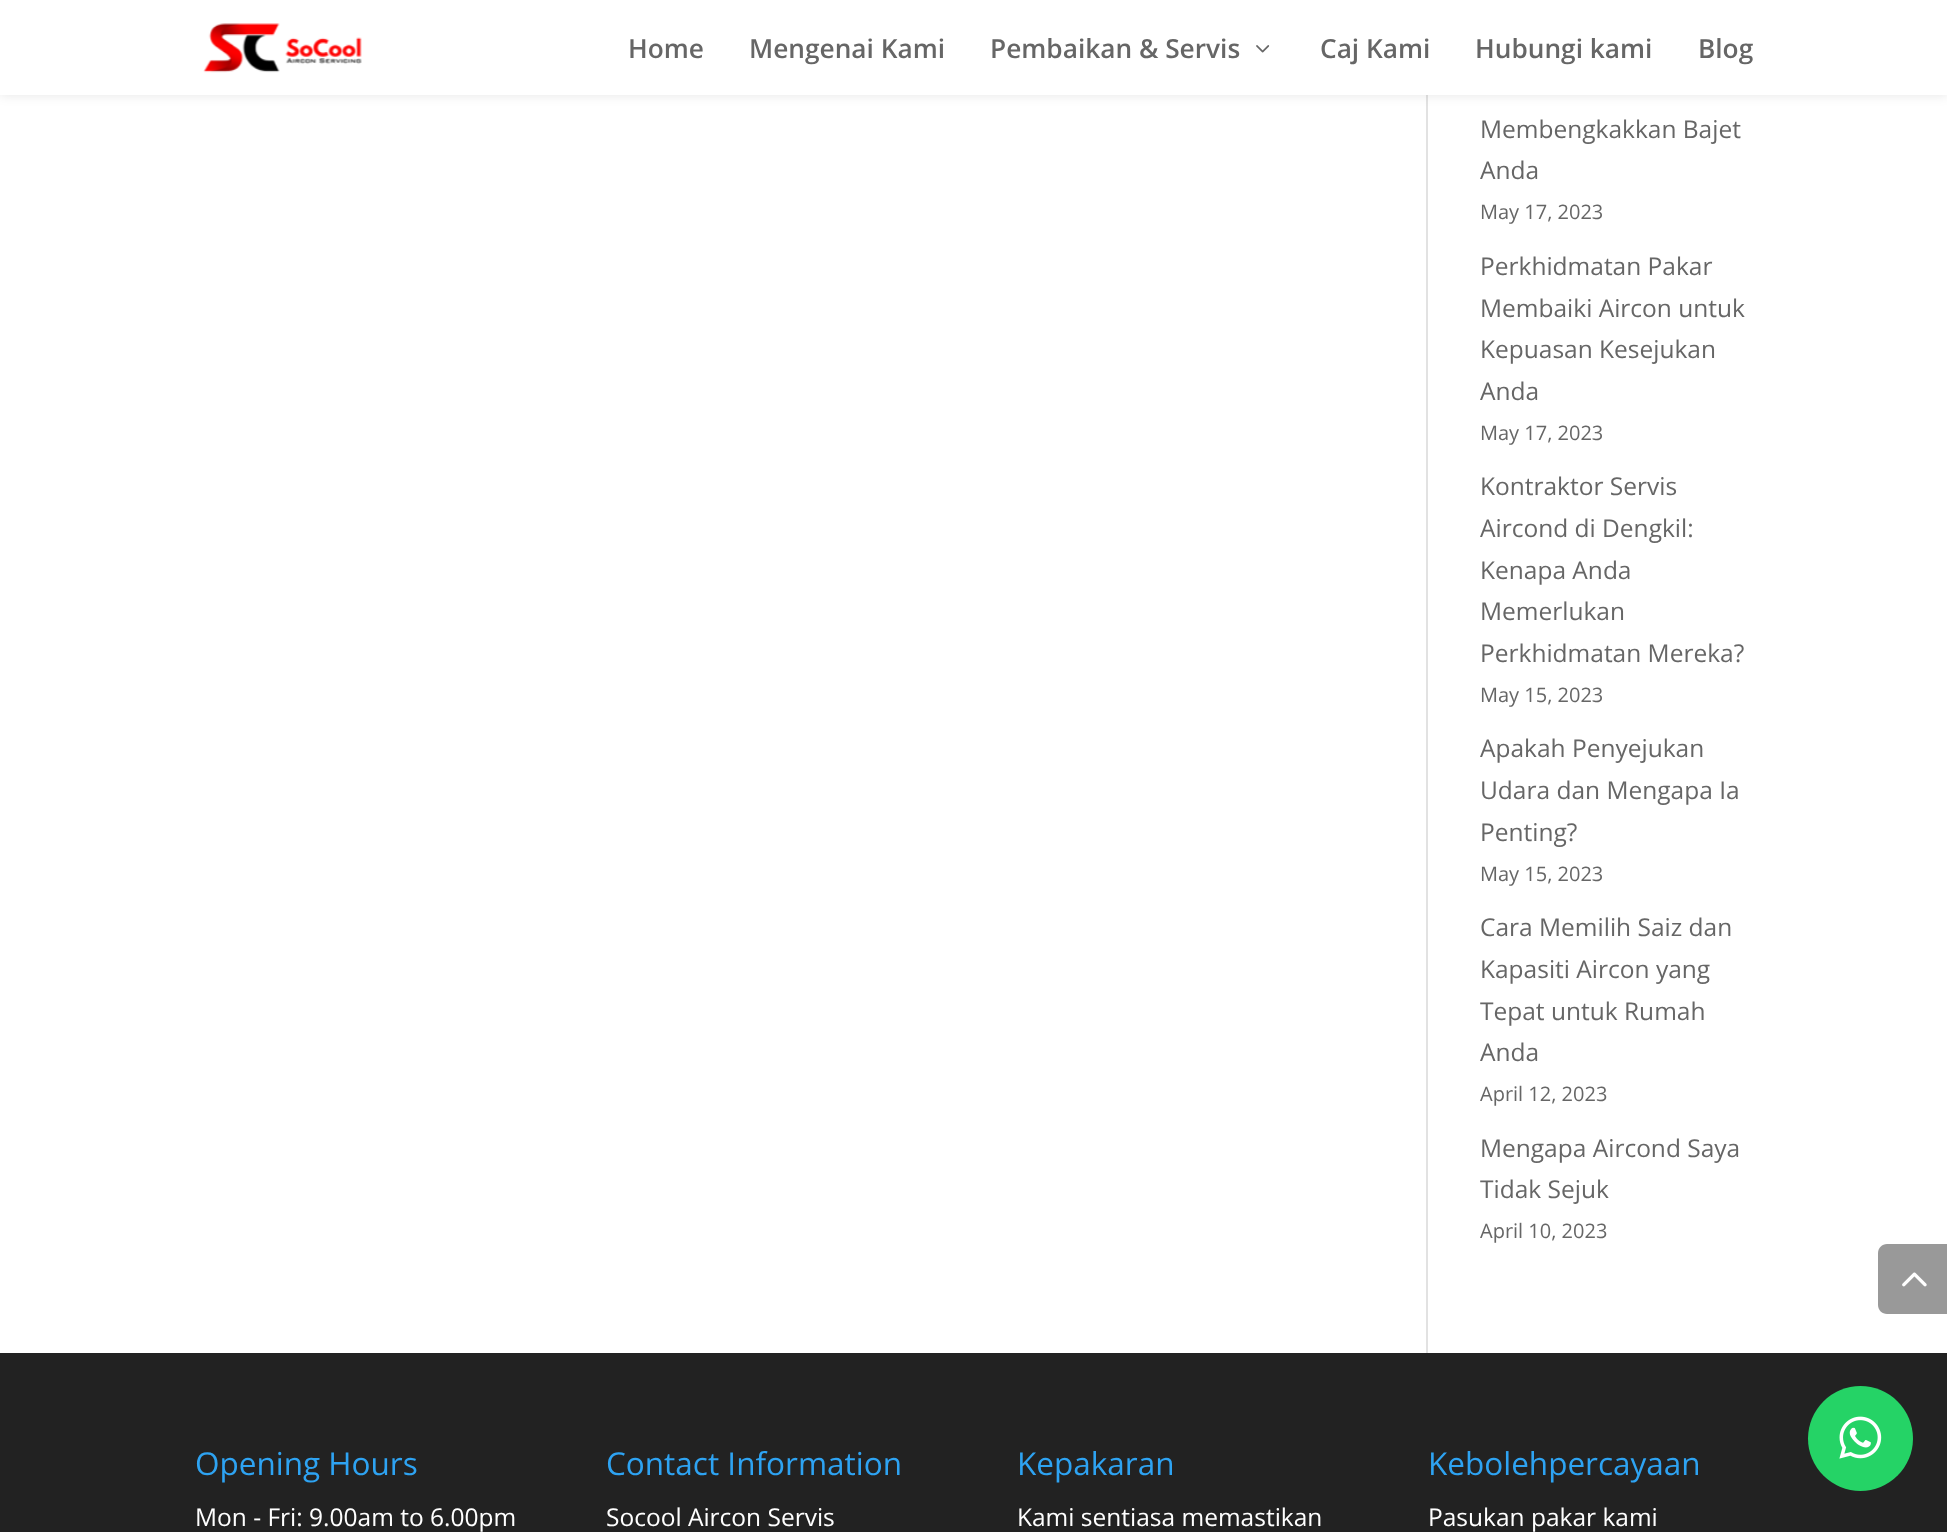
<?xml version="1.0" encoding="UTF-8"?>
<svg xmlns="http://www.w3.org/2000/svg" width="1947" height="1532">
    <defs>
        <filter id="blur1" x="-50%" y="-200%" width="200%" height="500%"><feGaussianBlur stdDeviation="6"/></filter>
    </defs>
    <rect width="100%" height="100%" fill="#FFFFFF"/>
    <rect x="1426" y="95" width="2" height="1258" fill="#E2E2E2"/>
    <rect x="0" y="0" width="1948" height="95" fill="#000000" fill-opacity="0.1" filter="url(#blur1)"/>
    <rect x="0" y="0" width="1947" height="95" fill="#FFFFFF"/>
    <image x="203" y="23" width="159" height="50" href="img_01.png"/>
    <text x="628" y="58" font-family="Open Sans" font-size="26.25" font-weight="600" fill="#666666">Home</text>
    <text x="749" y="58" font-family="Open Sans" font-size="26.25" font-weight="600" fill="#666666">Mengenai Kami</text>
    <text x="990" y="58" font-family="Open Sans" font-size="26.25" font-weight="600" fill="#666666">Pembaikan &amp; Servis</text>
    <image x="1256" y="45" width="14" height="8" href="img_02.png"/>
    <text x="1320" y="58" font-family="Open Sans" font-size="26.25" font-weight="600" fill="#666666">Caj Kami</text>
    <text x="1475" y="58" font-family="Open Sans" font-size="26.25" font-weight="600" fill="#666666">Hubungi kami</text>
    <text x="1698" y="58" font-family="Open Sans" font-size="26.25" font-weight="600" fill="#666666">Blog</text>
    <text font-family="Open Sans" font-size="24.5" fill="#666666">
        <tspan x="1480" y="138">Membengkakkan Bajet</tspan>
        <tspan x="1480" y="179">Anda</tspan>
    </text>
    <text x="1480" y="219" font-family="Open Sans" font-size="20" fill="#666666">May 17, 2023</text>
    <text font-family="Open Sans" font-size="24.5" fill="#666666">
        <tspan x="1480" y="275">Perkhidmatan Pakar</tspan>
        <tspan x="1480" y="317">Membaiki Aircon untuk</tspan>
        <tspan x="1480" y="358">Kepuasan Kesejukan</tspan>
        <tspan x="1480" y="400">Anda</tspan>
    </text>
    <text x="1480" y="440" font-family="Open Sans" font-size="20" fill="#666666">May 17, 2023</text>
    <text font-family="Open Sans" font-size="24.5" fill="#666666">
        <tspan x="1480" y="495">Kontraktor Servis</tspan>
        <tspan x="1480" y="537">Aircond di Dengkil:</tspan>
        <tspan x="1480" y="579">Kenapa Anda</tspan>
        <tspan x="1480" y="620">Memerlukan</tspan>
        <tspan x="1480" y="662">Perkhidmatan Mereka?</tspan>
    </text>
    <text x="1480" y="702" font-family="Open Sans" font-size="20" fill="#666666">May 15, 2023</text>
    <text font-family="Open Sans" font-size="24.5" fill="#666666">
        <tspan x="1480" y="757">Apakah Penyejukan</tspan>
        <tspan x="1480" y="799">Udara dan Mengapa Ia</tspan>
        <tspan x="1480" y="841">Penting?</tspan>
    </text>
    <text x="1480" y="881" font-family="Open Sans" font-size="20" fill="#666666">May 15, 2023</text>
    <text font-family="Open Sans" font-size="24.5" fill="#666666">
        <tspan x="1480" y="936">Cara Memilih Saiz dan</tspan>
        <tspan x="1480" y="978">Kapasiti Aircon yang</tspan>
        <tspan x="1480" y="1020">Tepat untuk Rumah</tspan>
        <tspan x="1480" y="1061">Anda</tspan>
    </text>
    <text x="1480" y="1101" font-family="Open Sans" font-size="20" fill="#666666">April 12, 2023</text>
    <text font-family="Open Sans" font-size="24.5" fill="#666666">
        <tspan x="1480" y="1157">Mengapa Aircond Saya</tspan>
        <tspan x="1480" y="1198">Tidak Sejuk</tspan>
    </text>
    <text x="1480" y="1238" font-family="Open Sans" font-size="20" fill="#666666">April 10, 2023</text>
    <path d="M 1887 1244 H 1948 V 1314 H 1887 C 1882 1314 1878 1310 1878 1305 V 1253 C 1878 1248 1882 1244 1887 1244 Z" fill="#999999"/>
    <image x="1902" y="1272" width="25" height="15" href="img_03.png"/>
    <rect x="0" y="1353" width="1947" height="179" fill="#222222"/>
    <text x="195" y="1475" font-family="Open Sans" font-size="31.5" fill="#2EA3F2">Opening Hours</text>
    <text x="195" y="1526" font-family="Open Sans" font-size="24.5" fill="#FFFFFF">Mon - Fri: 9.00am to 6.00pm</text>
    <text x="606" y="1475" font-family="Open Sans" font-size="31.5" fill="#2EA3F2">Contact Information</text>
    <text x="606" y="1526" font-family="Open Sans" font-size="24.5" fill="#FFFFFF">Socool Aircon Servis</text>
    <text x="1017" y="1475" font-family="Open Sans" font-size="31.5" fill="#2EA3F2">Kepakaran</text>
    <text x="1017" y="1526" font-family="Open Sans" font-size="24.5" fill="#FFFFFF">Kami sentiasa memastikan</text>
    <text x="1428" y="1475" font-family="Open Sans" font-size="31.5" fill="#2EA3F2">Kebolehpercayaan</text>
    <text x="1428" y="1526" font-family="Open Sans" font-size="24.5" fill="#FFFFFF">Pasukan pakar kami</text>
    <circle cx="1860.5" cy="1438.5" r="52.5" fill="#25D366"/>
    <image x="1839" y="1416" width="43" height="43" href="img_04.png"/>
</svg>
